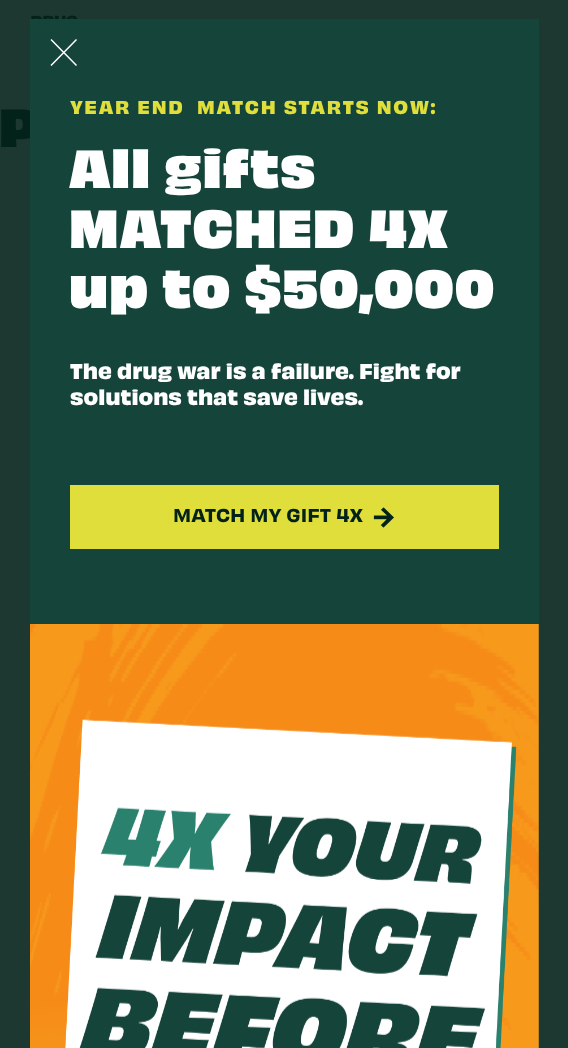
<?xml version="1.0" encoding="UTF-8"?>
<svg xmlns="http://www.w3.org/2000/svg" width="568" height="1048">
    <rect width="100%" height="100%" fill="#1C3830"/>
    <image x="31" y="15" width="47" height="4" href="img_01.png"/>
    <text x="-1" y="147" font-family="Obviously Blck" font-size="50" font-weight="600" letter-spacing="1.25" fill="#032219">P</text>
    <rect x="30" y="19" width="509" height="1029" fill="#15443A"/>
    <path d="M 51 39.5 L 76.5 65.5 M 76.5 39.5 L 51 65.5" fill="none" stroke="#FFFFFF" stroke-width="1.5"/>
    <text x="70" y="114" font-family="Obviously" font-size="17.5" font-weight="700" letter-spacing="1.75" fill="#DFDE3B" xml:space="preserve">YEAR END  MATCH STARTS NOW:</text>
    <text font-family="Obviously Blck" font-size="50" font-weight="600" letter-spacing="1.25" fill="#FFFFFF">
        <tspan x="69" y="188">All gifts</tspan>
        <tspan x="69" y="248">MATCHED 4X</tspan>
        <tspan x="69" y="308">up to $50,000</tspan>
    </text>
    <text font-family="Obviously" font-size="20" font-weight="700" fill="#FFFFFF">
        <tspan x="70" y="379">The drug war is a failure. Fight for</tspan>
        <tspan x="70" y="405">solutions that save lives.</tspan>
    </text>
    <rect x="70" y="485" width="429" height="64" fill="#DFDE3B"/>
    <text x="173" y="522" font-family="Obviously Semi" font-size="17.5" font-weight="600" fill="#032219">MATCH MY GIFT 4X</text>
    <image x="373" y="507" width="21" height="21" href="img_02.png"/>
    <image x="30" y="624" width="509" height="424" href="img_03.png"/>
</svg>
